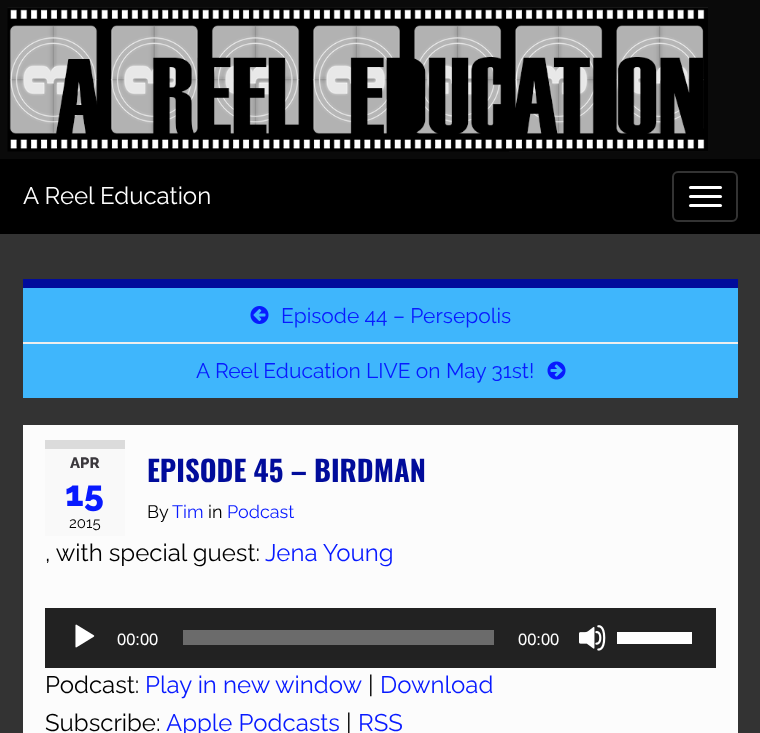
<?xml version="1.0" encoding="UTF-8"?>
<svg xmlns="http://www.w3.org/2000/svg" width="760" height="733">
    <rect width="100%" height="100%" fill="#0A0A0A"/>
    <image x="7" y="7" width="701" height="145" href="img_01.png"/>
    <rect x="0" y="159" width="760" height="75" fill="#000000"/>
    <text x="23" y="204" font-family="Raleway" font-size="24" fill="#FFFFFF">A Reel Education</text>
    <rect x="673" y="172" width="64" height="49" rx="5" fill="none" stroke="#333333" stroke-width="2"/>
    <rect x="689" y="186" width="33" height="3" rx="1.5" fill="#FFFFFF"/>
    <rect x="689" y="195" width="33" height="3" rx="1.5" fill="#FFFFFF"/>
    <rect x="689" y="204" width="33" height="3" rx="1.5" fill="#FFFFFF"/>
    <rect x="0" y="234" width="760" height="499" fill="#333333"/>
    <rect x="23" y="288" width="715" height="110" fill="#3FB6FC"/>
    <rect x="23" y="279" width="715" height="9" fill="#010C9B"/>
    <image x="250" y="306" width="19" height="18" href="img_02.png"/>
    <text x="281" y="323" font-family="Raleway" font-size="21" fill="#081AFF">Episode 44 – Persepolis</text>
    <rect x="23" y="342" width="715" height="2" fill="#EEEEEE"/>
    <text x="196" y="378" font-family="Raleway" font-size="21" fill="#081AFF">A Reel Education LIVE on May 31st!</text>
    <image x="547" y="361" width="19" height="19" href="img_03.png"/>
    <rect x="23" y="425" width="715" height="308" fill="#FCFCFC"/>
    <rect x="45" y="449" width="80" height="87" fill="#F9F9F9"/>
    <rect x="45" y="440" width="80" height="9" fill="#DBDBDB"/>
    <text x="70" y="468" font-family="Raleway" font-size="15" font-weight="800" fill="#3B383D">APR</text>
    <text x="65" y="506" font-family="Raleway" font-size="36" font-weight="800" fill="#081AFF">15</text>
    <text x="69" y="528" font-family="Raleway" font-size="15" fill="#000000">2015</text>
    <text x="147" y="482" font-family="Oswald" font-size="28.75" font-weight="700" fill="#010C9B">EPISODE 45 – BIRDMAN</text>
    <text x="147" y="518" font-family="Raleway" font-size="18" fill="#000000">By</text>
    <text x="172" y="518" font-family="Raleway" font-size="18" fill="#081AFF">Tim</text>
    <text x="208" y="518" font-family="Raleway" font-size="18" fill="#000000">in</text>
    <text x="227" y="518" font-family="Raleway" font-size="18" fill="#081AFF">Podcast</text>
    <text x="45" y="561" font-family="Raleway" font-size="24" fill="#000000">, with special guest:</text>
    <text x="265" y="561" font-family="Raleway" font-size="24" fill="#081AFF">Jena Young</text>
    <rect x="45" y="608" width="671" height="60" fill="#222222"/>
    <image x="75" y="624" width="20" height="24" href="img_04.png"/>
    <text x="117" y="645" font-family="Liberation Sans" font-size="16.5" fill="#FFFFFF">00:00</text>
    <rect x="183" y="630" width="311" height="15" fill="#6B6B6B"/>
    <text x="518" y="645" font-family="Liberation Sans" font-size="16.5" fill="#FFFFFF">00:00</text>
    <image x="579" y="625" width="27" height="26" href="img_05.png"/>
    <rect x="617" y="632" width="75" height="12" fill="#FFFFFF"/>
    <text x="45" y="693" font-family="Raleway" font-size="24" fill="#000000">Podcast:</text>
    <text x="145" y="693" font-family="Raleway" font-size="24" fill="#081AFF">Play in new window</text>
    <text x="368" y="693" font-family="Raleway" font-size="24" fill="#000000">|</text>
    <text x="380" y="693" font-family="Raleway" font-size="24" fill="#081AFF">Download</text>
    <text x="45" y="731" font-family="Raleway" font-size="24" fill="#000000">Subscribe:</text>
    <text x="166" y="731" font-family="Raleway" font-size="24" fill="#081AFF">Apple Podcasts</text>
    <text x="346" y="731" font-family="Raleway" font-size="24" fill="#000000">|</text>
    <text x="358" y="731" font-family="Raleway" font-size="24" fill="#081AFF">RSS</text>
</svg>
